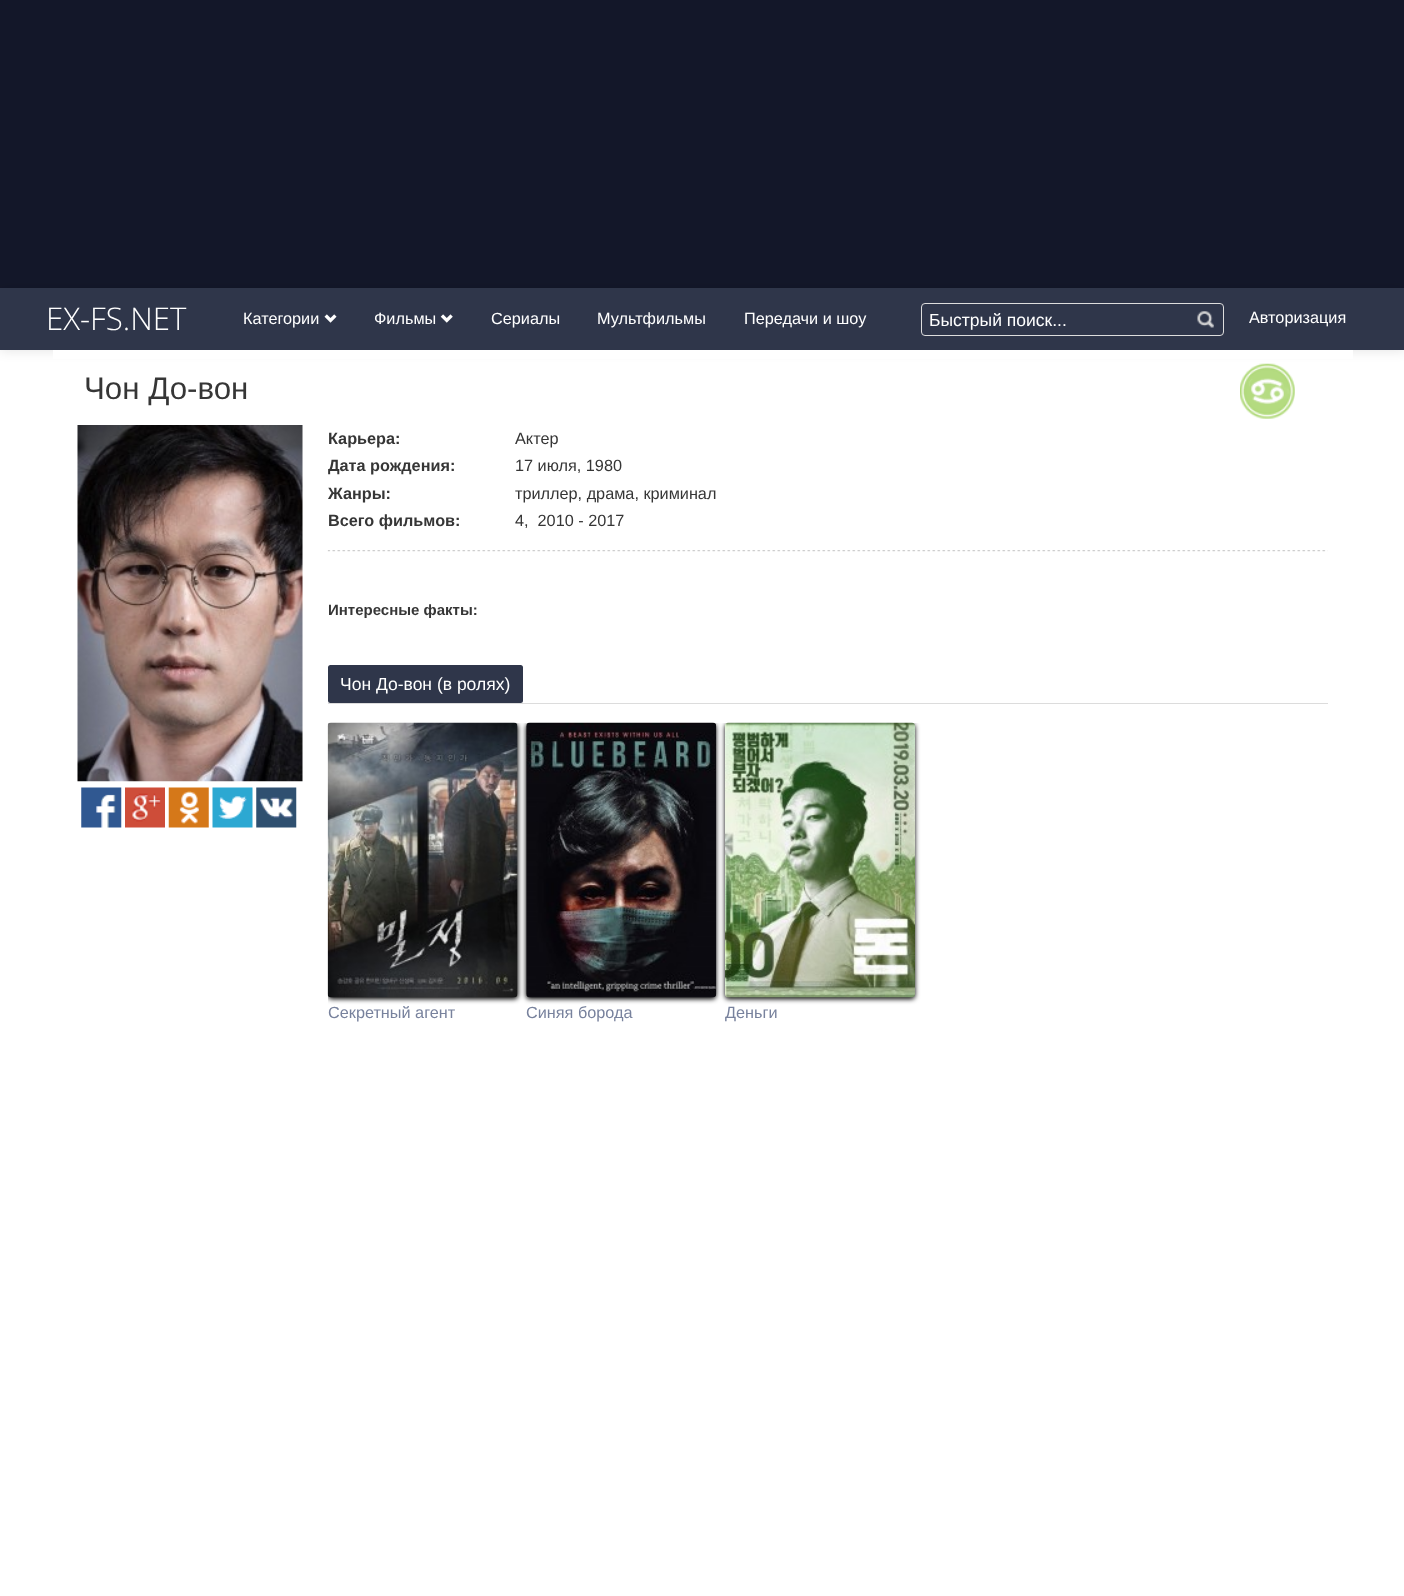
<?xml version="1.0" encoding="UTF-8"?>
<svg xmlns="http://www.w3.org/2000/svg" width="1404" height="1596">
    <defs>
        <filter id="blur1" x="-50%" y="-200%" width="200%" height="500%"><feGaussianBlur stdDeviation="6"/></filter>
        <clipPath id="clip1"><rect x="328" y="425" width="1000" height="649"/></clipPath>
        <clipPath id="clip2"><rect x="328" y="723" width="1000" height="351"/></clipPath>
        <filter id="blur2" x="-50%" y="-200%" width="200%" height="500%"><feGaussianBlur stdDeviation="2.5"/></filter>
    </defs>
    <rect width="100%" height="100%" fill="#131729"/>
    <rect x="0" y="350" width="1404" height="1246" fill="#FFFFFF"/>
    <rect x="0" y="289" width="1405" height="62" fill="#000000" fill-opacity="0.1" filter="url(#blur1)"/>
    <rect x="0" y="288" width="1404" height="62" fill="#2F364A"/>
    <text x="46" y="330" font-family="Open Sans" font-size="31.25" font-weight="300" fill="#FFFFFF">EX-FS.NET</text>
    <text x="243" y="324" font-family="Liberation Sans" font-size="16.25" fill="#FFFFFF">Категории</text>
    <image x="324" y="314" width="13" height="9" href="img_01.png"/>
    <text x="374" y="324" font-family="Liberation Sans" font-size="16.25" fill="#FFFFFF">Фильмы</text>
    <image x="440" y="314" width="13" height="9" href="img_02.png"/>
    <text x="491" y="324" font-family="Liberation Sans" font-size="16.25" fill="#FFFFFF">Сериалы</text>
    <text x="597" y="324" font-family="Liberation Sans" font-size="16.25" fill="#FFFFFF">Мультфильмы</text>
    <text x="744" y="324" font-family="Liberation Sans" font-size="16.25" fill="#FFFFFF">Передачи и шоу</text>
    <rect x="921.5" y="303.5" width="302" height="32" rx="3.5" fill="none" stroke="#DDDDDD"/>
    <text x="929" y="326" font-family="Liberation Sans" font-size="17.5" fill="#FFFFFF">Быстрый поиск...</text>
    <image x="1197" y="311" width="17" height="17" href="img_03.png"/>
    <text x="1249" y="323" font-family="Liberation Sans" font-size="16.25" fill="#FFFFFF">Авторизация</text>
    <rect x="53" y="350" width="1300" height="9" fill="#FFFFFF"/>
    <text x="84" y="399" font-family="Liberation Sans" font-size="31.25" fill="#363636">Чон До-вон</text>
    <image x="1240" y="363" width="55" height="56" href="img_04.png"/>
    <image x="77" y="425" width="226" height="357" href="img_05.png"/>
    <image x="81" y="787" width="41" height="41" href="img_06.png"/>
    <image x="125" y="787" width="40" height="41" href="img_07.png"/>
    <image x="168" y="787" width="41" height="41" href="img_08.png"/>
    <image x="212" y="787" width="41" height="41" href="img_09.png"/>
    <image x="256" y="787" width="41" height="41" href="img_10.png"/>
    <text x="328" y="444" font-family="Liberation Sans" font-size="16.25" font-weight="700" fill="#363636">Карьера:</text>
    <text x="515" y="444" font-family="Liberation Sans" font-size="16.25" fill="#363636">Актер</text>
    <g clip-path="url(#clip1)">
        <text x="328" y="471" font-family="Liberation Sans" font-size="16.25" font-weight="700" fill="#363636">Дата рождения:</text>
    </g>
    <text x="515" y="471" font-family="Liberation Sans" font-size="16.25" fill="#363636">17 июля, 1980</text>
    <text x="328" y="499" font-family="Liberation Sans" font-size="16.25" font-weight="700" fill="#363636">Жанры:</text>
    <text x="515" y="499" font-family="Liberation Sans" font-size="16.25" fill="#363636">триллер, драма, криминал</text>
    <text x="328" y="526" font-family="Liberation Sans" font-size="16.25" font-weight="700" fill="#363636">Всего фильмов:</text>
    <text x="515" y="526" font-family="Liberation Sans" font-size="16.25" fill="#363636" xml:space="preserve">4,  2010 - 2017</text>
    <image x="327" y="550" width="1001" height="2" href="img_11.png"/>
    <text x="328" y="615" font-family="Liberation Sans" font-size="15" font-weight="700" fill="#363636">Интересные факты:</text>
    <rect x="328" y="703" width="1000" height="1" fill="#DCDCDC"/>
    <rect x="328" y="665" width="195" height="38" rx="2.5" fill="#2F364A"/>
    <text x="340" y="690" font-family="Liberation Sans" font-size="17.5" fill="#FFFFFF">Чон До-вон (в ролях)</text>
    <g clip-path="url(#clip2)">
        <rect x="328" y="724" width="190" height="275" rx="4" fill="#000000" filter="url(#blur2)"/>
    </g>
    <image x="327" y="722" width="191" height="276" href="img_12.png"/>
    <text x="328" y="1018" font-family="Liberation Sans" font-size="16.25" fill="#78829D">Секретный агент</text>
    <g clip-path="url(#clip2)">
        <rect x="526" y="724" width="190" height="275" rx="4" fill="#000000" filter="url(#blur2)"/>
    </g>
    <image x="526" y="722" width="191" height="276" href="img_13.png"/>
    <text x="526" y="1018" font-family="Liberation Sans" font-size="16.25" fill="#78829D">Синяя борода</text>
    <g clip-path="url(#clip2)">
        <rect x="725" y="724" width="190" height="275" rx="4" fill="#000000" filter="url(#blur2)"/>
    </g>
    <image x="725" y="722" width="190" height="276" href="img_14.png"/>
    <text x="725" y="1018" font-family="Liberation Sans" font-size="16.25" fill="#78829D">Деньги</text>
</svg>
